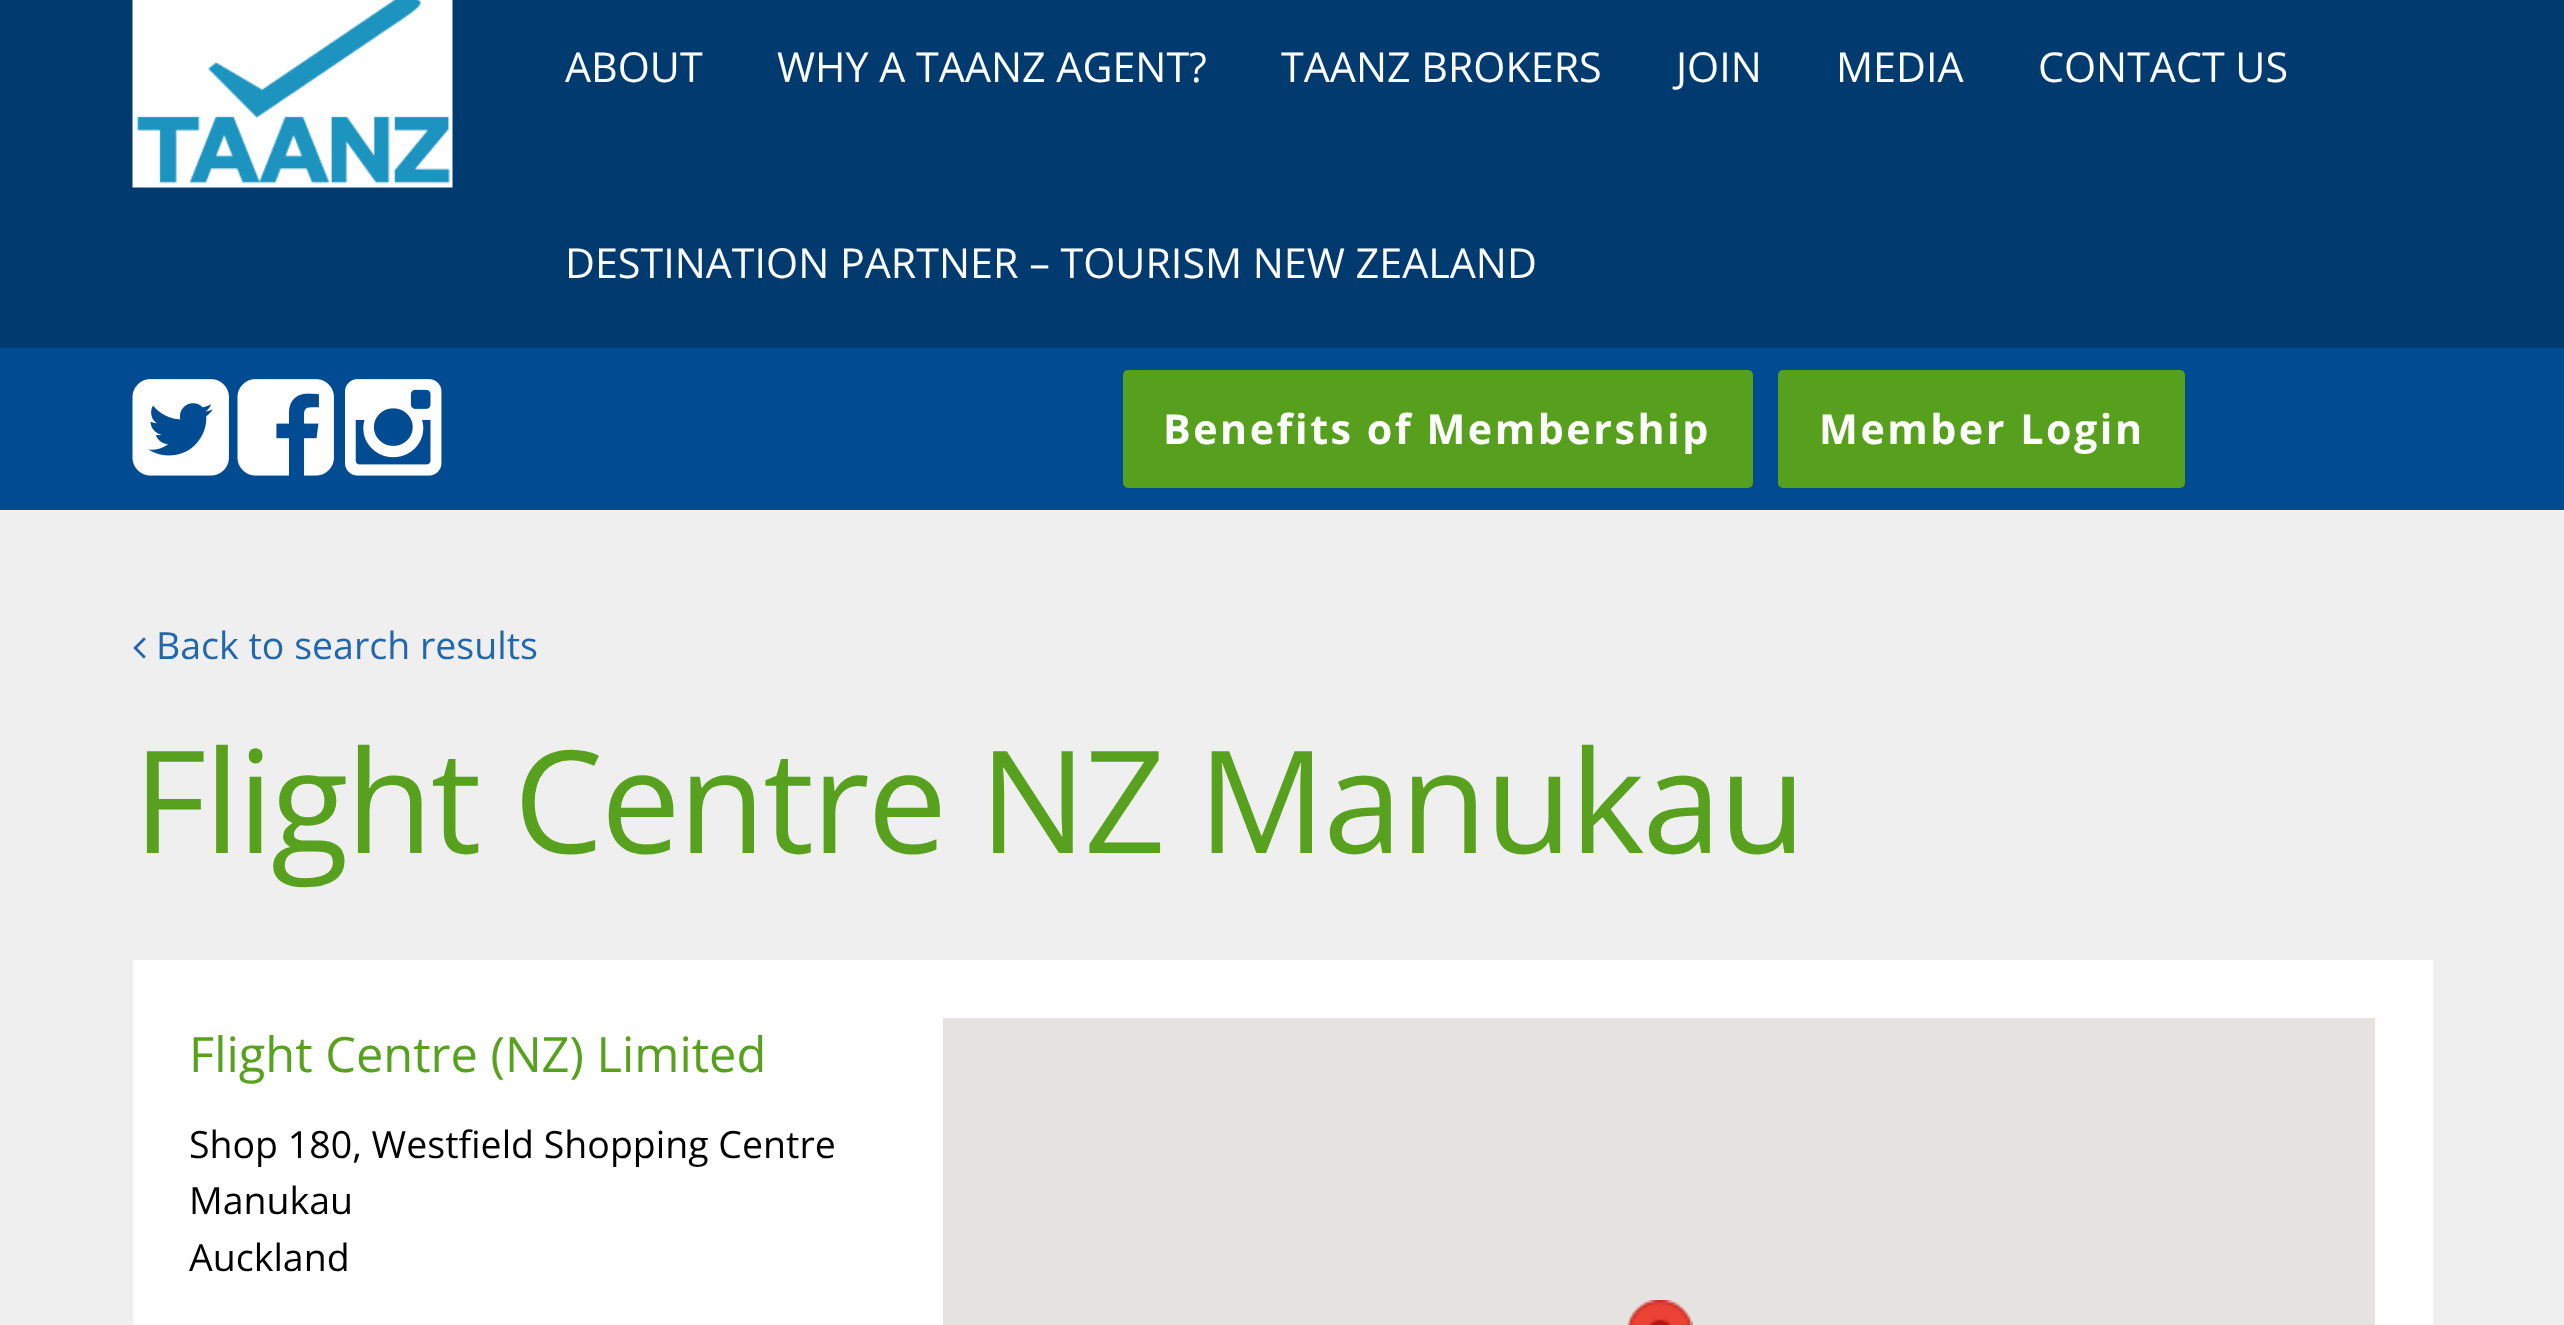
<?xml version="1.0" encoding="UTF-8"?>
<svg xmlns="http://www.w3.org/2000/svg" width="2564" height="1325">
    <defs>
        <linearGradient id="g1" gradientUnits="userSpaceOnUse" x1="1283" y1="-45" x2="1283" y2="510"><stop offset="0" stop-color="#003A6F"/><stop offset="0.49" stop-color="#004B91"/></linearGradient>
    </defs>
    <rect width="100%" height="100%" fill="#F0EFEF"/>
    <rect x="0" y="348" width="2564" height="162" fill="url(#g1)"/>
    <rect x="0" y="0" width="2564" height="348" fill="#003A6F"/>
    <image x="132" y="0" width="321" height="188" href="img_01.png"/>
    <text x="565" y="82" font-family="Open Sans" font-size="41.25" fill="#FFFFFF">ABOUT</text>
    <text x="777" y="82" font-family="Open Sans" font-size="41.25" fill="#FFFFFF">WHY A TAANZ AGENT?</text>
    <text x="1281" y="82" font-family="Open Sans" font-size="41.25" fill="#FFFFFF">TAANZ BROKERS</text>
    <text x="1676" y="82" font-family="Open Sans" font-size="41.25" fill="#FFFFFF">JOIN</text>
    <text x="1836" y="82" font-family="Open Sans" font-size="41.25" fill="#FFFFFF">MEDIA</text>
    <text x="2038" y="82" font-family="Open Sans" font-size="41.25" fill="#FFFFFF">CONTACT US</text>
    <text x="565" y="278" font-family="Open Sans" font-size="41.25" fill="#FFFFFF">DESTINATION PARTNER – TOURISM NEW ZEALAND</text>
    <image x="132" y="379" width="97" height="97" href="img_02.png"/>
    <image x="237" y="379" width="97" height="97" href="img_03.png"/>
    <image x="345" y="379" width="97" height="97" href="img_04.png"/>
    <rect x="1123" y="370" width="630" height="118" rx="5" fill="#57A01D"/>
    <text x="1163" y="444" font-family="Open Sans" font-size="41.25" font-weight="700" letter-spacing="2.5" fill="#FFFFFF">Benefits of Membership</text>
    <rect x="1778" y="370" width="407" height="118" rx="5" fill="#57A01D"/>
    <text x="1819" y="444" font-family="Open Sans" font-size="41.25" font-weight="700" letter-spacing="2.5" fill="#FFFFFF">Member Login</text>
    <image x="133" y="637" width="13" height="22" href="img_05.png"/>
    <text x="156" y="659" font-family="Open Sans" font-size="37.5" fill="#2167AD">Back to search results</text>
    <text x="133" y="853" font-family="Open Sans" font-size="142.5" letter-spacing="-2.5" fill="#58A11E">Flight Centre NZ Manukau</text>
    <rect x="133" y="960" width="2300" height="365" fill="#FFFFFF"/>
    <text x="189" y="1072" font-family="Open Sans" font-size="48.75" fill="#58A11E">Flight Centre (NZ) Limited</text>
    <text font-family="Open Sans" font-size="37.5" fill="#000000">
        <tspan x="189" y="1158">Shop 180, Westfield Shopping Centre</tspan>
        <tspan x="189" y="1214">Manukau</tspan>
        <tspan x="189" y="1271">Auckland</tspan>
    </text>
    <rect x="943" y="1018" width="1432" height="307" fill="#E5E3DF"/>
    <image x="1628" y="1300" width="65" height="25" href="img_06.png"/>
</svg>
